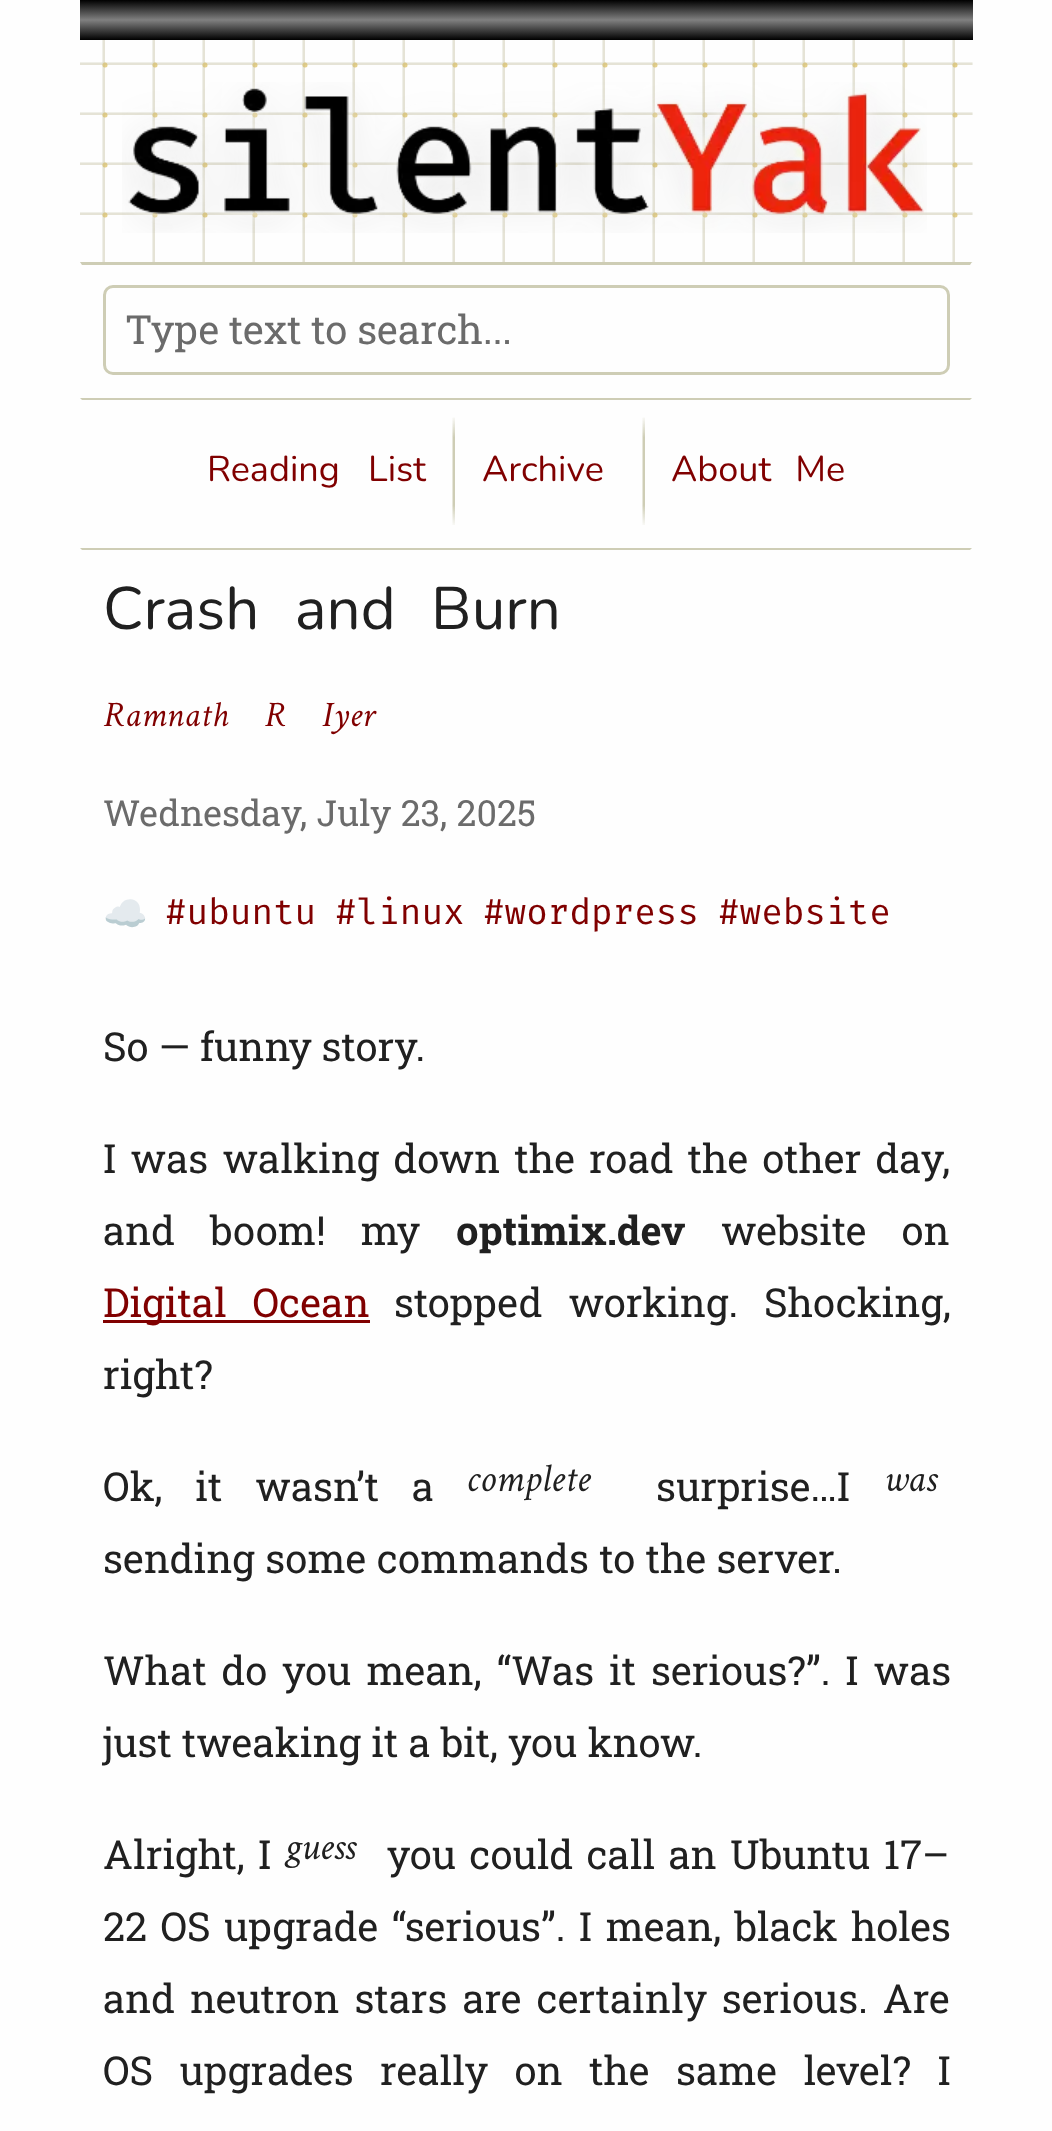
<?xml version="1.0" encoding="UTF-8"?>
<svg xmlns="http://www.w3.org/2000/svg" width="1052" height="2131">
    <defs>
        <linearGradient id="g1" gradientUnits="userSpaceOnUse" x1="526" y1="40" x2="526" y2="0"><stop offset="0" stop-color="#000000"/><stop offset="0.5" stop-color="#808080"/><stop offset="1" stop-color="#000000"/></linearGradient>
    </defs>
    <rect width="100%" height="100%" fill="#FEFEFE"/>
    <rect x="80" y="0" width="893" height="40" fill="url(#g1)"/>
    <image x="80" y="40" width="893" height="223" href="img_01.png"/>
    <image x="80" y="40" width="893" height="223" href="img_02.png"/>
    <image x="122" y="82" width="805" height="151" href="img_03.png"/>
    <path d="M 80 262 H 972 L 970 265 H 82 Z" fill="#CECDB5"/>
    <rect x="104.5" y="286.5" width="844" height="87" rx="8.5" fill="none" stroke="#CECDB5" stroke-width="3"/>
    <text x="125" y="344" font-family="Roboto Slab" font-size="40" fill="#6B6B6B">Type text to search...</text>
    <path d="M 80 398 H 972 L 970 400 H 82 Z" fill="#CECDB5"/>
    <image x="452" y="417" width="3" height="108" href="img_04.png"/>
    <text x="207" y="481" word-spacing="19" font-family="Nunito" font-size="36" fill="#800000">Reading List</text>
    <image x="642" y="417" width="3" height="108" href="img_04.png"/>
    <text x="482" y="481" font-family="Nunito" font-size="36" fill="#800000">Archive</text>
    <text x="671" y="481" word-spacing="15" font-family="Nunito" font-size="36" fill="#800000">About Me</text>
    <path d="M 80 548 H 972 L 970 550 H 82 Z" fill="#CECDB5"/>
    <text x="103" y="629" word-spacing="20" font-family="Nunito" font-size="60" fill="#202020">Crash and Burn</text>
    <text x="103" y="726" word-spacing="28" font-family="Crimson Text" font-size="36" font-style="italic" fill="#800000">Ramnath R Iyer</text>
    <text x="103" y="826" word-spacing="0.5" font-family="Roboto Slab" font-size="36" fill="#6B6B6B">Wednesday, July 23, 2025</text>
    <text x="103" y="926" font-family="Noto Color Emoji" font-size="36" fill="#800000">☁️</text>
    <text x="165" y="924" font-family="Fira Mono" font-size="36" fill="#800000">#ubuntu</text>
    <text x="335" y="924" font-family="Fira Mono" font-size="36" fill="#800000">#linux</text>
    <text x="483" y="924" font-family="Fira Mono" font-size="36" fill="#800000">#wordpress</text>
    <text x="718" y="924" font-family="Fira Mono" font-size="36" fill="#800000">#website</text>
    <text x="103" y="1061" font-family="Roboto Slab" font-size="40" fill="#202020">So — funny story.</text>
    <text font-family="Roboto Slab" font-size="40" fill="#202020">
        <tspan x="103" y="1173" word-spacing="4.25">I was walking down the road the other day,</tspan>
        <tspan x="103" y="1245" word-spacing="25">and boom! my</tspan>
    </text>
    <text x="456" y="1245" font-family="Roboto Slab" font-size="40" font-weight="700" fill="#202020">optimix.dev</text>
    <text x="721" y="1245" word-spacing="25" font-family="Roboto Slab" font-size="40" fill="#202020">website on</text>
    <rect x="103" y="1320" width="267" height="3" fill="#800000"/>
    <text x="103" y="1317" word-spacing="16" font-family="Roboto Slab" font-size="40" fill="#800000">Digital Ocean</text>
    <text x="394" y="1317" word-spacing="16" font-family="Roboto Slab" font-size="40" fill="#202020">stopped working. Shocking,</text>
    <text x="103" y="1389" font-family="Roboto Slab" font-size="40" fill="#202020">right?</text>
    <text x="103" y="1501" word-spacing="23" font-family="Roboto Slab" font-size="40" fill="#202020">Ok, it wasn’t a</text>
    <text x="466" y="1491" font-family="Crimson Text" font-size="40" font-style="italic" fill="#202020">complete</text>
    <text x="656" y="1501" font-family="Roboto Slab" font-size="40" fill="#202020">surprise…I</text>
    <text x="884" y="1491" font-family="Crimson Text" font-size="40" font-style="italic" fill="#202020">was</text>
    <text x="103" y="1573" word-spacing="0.5" font-family="Roboto Slab" font-size="40" fill="#202020">sending some commands to the server.</text>
    <text font-family="Roboto Slab" font-size="40" fill="#202020">
        <tspan x="103" y="1685" word-spacing="5">What do you mean, “Was it serious?”. I was</tspan>
        <tspan x="103" y="1757" word-spacing="0.25">just tweaking it a bit, you know.</tspan>
    </text>
    <text x="103" y="1869" word-spacing="3.25" font-family="Roboto Slab" font-size="40" fill="#202020">Alright, I</text>
    <text x="284" y="1859" font-family="Crimson Text" font-size="40" font-style="italic" fill="#202020">guess</text>
    <text x="387" y="1869" word-spacing="3.25" font-family="Roboto Slab" font-size="40" fill="#202020">you could call an Ubuntu 17–</text>
    <text font-family="Roboto Slab" font-size="40" fill="#202020">
        <tspan x="103" y="1941" word-spacing="3.5">22 OS upgrade “serious”. I mean, black holes</tspan>
        <tspan x="103" y="2013" word-spacing="5">and neutron stars are certainly serious. Are</tspan>
        <tspan x="103" y="2085" word-spacing="16.5">OS upgrades really on the same level? I</tspan>
    </text>
</svg>
